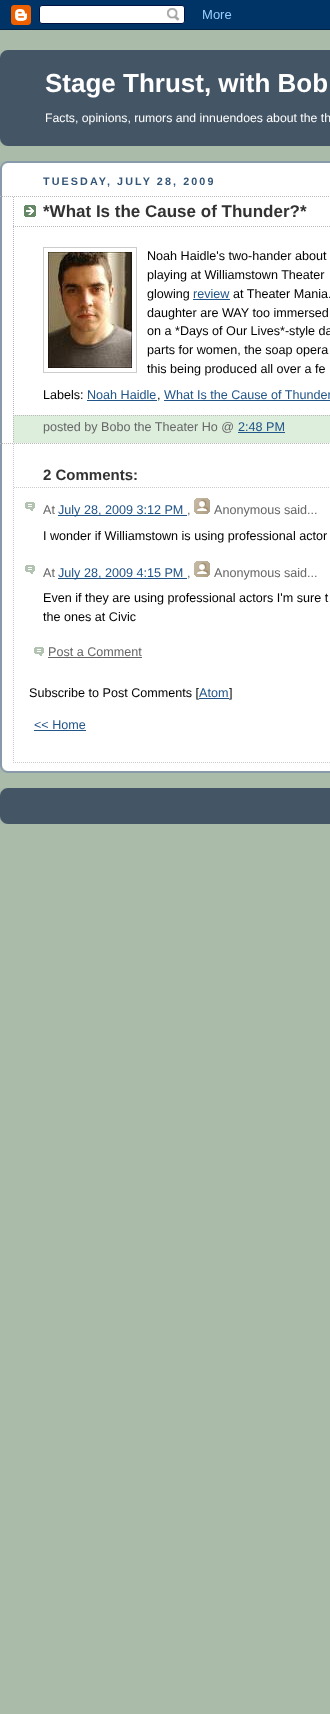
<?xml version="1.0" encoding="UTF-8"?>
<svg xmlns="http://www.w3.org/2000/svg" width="330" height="1714">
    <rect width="100%" height="100%" fill="#AABBAA"/>
    <image x="0" y="0" width="330" height="30" href="img_01.png"/>
    <rect x="0" y="50" width="330" height="96" fill="#445566"/>
    <image x="0" y="50" width="8" height="8" href="img_02.png"/>
    <image x="0" y="138" width="8" height="8" href="img_03.png"/>
    <text x="45" y="92" font-family="Liberation Sans" font-size="26" font-weight="700" fill="#FFFFFF">Stage Thrust, with Bob</text>
    <text x="45" y="122" font-family="Liberation Sans" font-size="12.25" fill="#FFFFFF">Facts, opinions, rumors and innuendoes about the th</text>
    <rect x="2" y="163" width="328" height="608" fill="#FFFFFF"/>
    <image x="0" y="723" width="330" height="50" href="img_04.png"/>
    <image x="0" y="161" width="330" height="50" href="img_05.png"/>
    <rect x="0" y="211" width="2" height="512" fill="#8899AA"/>
    <text x="43" y="185" font-family="Liberation Sans" font-size="10.75" font-weight="700" letter-spacing="2.1" fill="#335577">TUESDAY, JULY 28, 2009</text>
    <path d="M 0 196.5 H 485" fill="none" stroke="#BBBBBB" stroke-dasharray="1 1"/>
    <path d="M 0 443.5 H 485" fill="none" stroke="#BBBBBB" stroke-dasharray="1 1"/>
    <image x="24" y="205" width="12" height="12" href="img_06.png"/>
    <path d="M 13 226.5 H 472" fill="none" stroke="#BBBBBB" stroke-dasharray="1 1"/>
    <path d="M 13.5 197 V 227" fill="none" stroke="#BBBBBB" stroke-dasharray="1 1"/>
    <text x="43" y="217" font-family="Liberation Sans" font-size="17" font-weight="700" fill="#333333">*What Is the Cause of Thunder?*</text>
    <path d="M 13.5 227 V 415" fill="none" stroke="#BBBBBB" stroke-dasharray="1 1"/>
    <rect x="43.5" y="247.5" width="93" height="125" fill="none" stroke="#CCCCCC"/>
    <image x="48" y="252" width="84" height="116" href="img_07.png"/>
    <text font-family="Liberation Sans" font-size="12.6" fill="#000000">
        <tspan x="147" y="260">Noah Haidle's two-hander about</tspan>
        <tspan x="147" y="279">playing at Williamstown Theater</tspan>
        <tspan x="147" y="298">glowing</tspan>
    </text>
    <text x="193" y="298" font-family="Liberation Sans" font-size="12.6" fill="#225588">review</text>
    <rect x="193" y="299" width="37" height="1" fill="#225588"/>
    <text x="233" y="298" font-family="Liberation Sans" font-size="12.6" fill="#000000">at Theater Mania.</text>
    <text font-family="Liberation Sans" font-size="12.6" fill="#000000">
        <tspan x="147" y="317">daughter are WAY too immersed</tspan>
        <tspan x="147" y="335">on a *Days of Our Lives*-style da</tspan>
        <tspan x="147" y="354">parts for women, the soap opera</tspan>
        <tspan x="147" y="373">this being produced all over a fe</tspan>
    </text>
    <text x="43" y="399" font-family="Liberation Sans" font-size="12.6" fill="#000000">Labels:</text>
    <text x="87" y="399" font-family="Liberation Sans" font-size="12.6" fill="#225588">Noah Haidle</text>
    <rect x="87" y="400" width="70" height="1" fill="#225588"/>
    <text x="157" y="399" font-family="Liberation Sans" font-size="12.6" fill="#000000">,</text>
    <text x="164" y="399" font-family="Liberation Sans" font-size="12.6" fill="#225588">What Is the Cause of Thunder</text>
    <rect x="164" y="400" width="166" height="1" fill="#225588"/>
    <rect x="13" y="415" width="317" height="28" fill="#DDEEDD"/>
    <path d="M 13 415.5 H 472" fill="none" stroke="#BBBBBB" stroke-dasharray="1 1"/>
    <path d="M 13.5 415 V 443" fill="none" stroke="#BBBBBB" stroke-dasharray="1 1"/>
    <text x="43" y="431" font-family="Liberation Sans" font-size="12.6" fill="#666666">posted by Bobo the Theater Ho @</text>
    <text x="238" y="431" font-family="Liberation Sans" font-size="12.6" fill="#225588">2:48 PM</text>
    <rect x="238" y="432" width="47" height="1" fill="#225588"/>
    <path d="M 13 762.5 H 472" fill="none" stroke="#CCCCCC" stroke-dasharray="1 1"/>
    <path d="M 13.5 444 V 763" fill="none" stroke="#CCCCCC" stroke-dasharray="1 1"/>
    <path d="M 14 487.5 H 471" fill="none" stroke="#CCCCCC" stroke-dasharray="1 1"/>
    <text x="43" y="480" font-family="Liberation Sans" font-size="15" font-weight="700" fill="#333333">2 Comments:</text>
    <image x="25" y="502" width="10" height="9" href="img_08.png"/>
    <text x="43" y="514" font-family="Liberation Sans" font-size="12.6" fill="#666666">At</text>
    <rect x="58" y="515" width="129" height="1" fill="#225588"/>
    <text x="58" y="514" font-family="Liberation Sans" font-size="12.6" fill="#225588">July 28, 2009 3:12 PM</text>
    <text x="187" y="514" font-family="Liberation Sans" font-size="12.6" fill="#666666">,</text>
    <image x="194" y="498" width="16" height="16" href="img_09.png"/>
    <text x="214" y="514" font-family="Liberation Sans" font-size="12.6" fill="#666666">Anonymous said...</text>
    <text x="43" y="540" font-family="Liberation Sans" font-size="12.6" fill="#000000">I wonder if Williamstown is using professional actor</text>
    <image x="25" y="565" width="10" height="9" href="img_08.png"/>
    <text x="43" y="577" font-family="Liberation Sans" font-size="12.6" fill="#666666">At</text>
    <rect x="58" y="578" width="129" height="1" fill="#225588"/>
    <text x="58" y="577" font-family="Liberation Sans" font-size="12.6" fill="#225588">July 28, 2009 4:15 PM</text>
    <text x="187" y="577" font-family="Liberation Sans" font-size="12.6" fill="#666666">,</text>
    <image x="194" y="561" width="16" height="16" href="img_09.png"/>
    <text x="214" y="577" font-family="Liberation Sans" font-size="12.6" fill="#666666">Anonymous said...</text>
    <text font-family="Liberation Sans" font-size="12.6" fill="#000000">
        <tspan x="43" y="602">Even if they are using professional actors I'm sure t</tspan>
        <tspan x="43" y="621">the ones at Civic</tspan>
    </text>
    <image x="34" y="647" width="10" height="9" href="img_08.png"/>
    <text x="48" y="656" font-family="Liberation Sans" font-size="12.6" fill="#666666">Post a Comment</text>
    <rect x="48" y="657" width="94" height="1" fill="#666666"/>
    <text x="29" y="697" font-family="Liberation Sans" font-size="12.6" fill="#000000">Subscribe to Post Comments [</text>
    <text x="199" y="697" font-family="Liberation Sans" font-size="12.6" fill="#225588">Atom</text>
    <rect x="199" y="698" width="30" height="1" fill="#225588"/>
    <text x="229" y="697" font-family="Liberation Sans" font-size="12.6" fill="#000000">]</text>
    <text x="34" y="729" font-family="Liberation Sans" font-size="12.6" fill="#225588">&lt;&lt; Home</text>
    <rect x="34" y="730" width="52" height="1" fill="#225588"/>
    <rect x="0" y="788" width="330" height="36" fill="#445566"/>
    <image x="0" y="788" width="8" height="8" href="img_02.png"/>
    <image x="0" y="816" width="8" height="8" href="img_03.png"/>
</svg>
